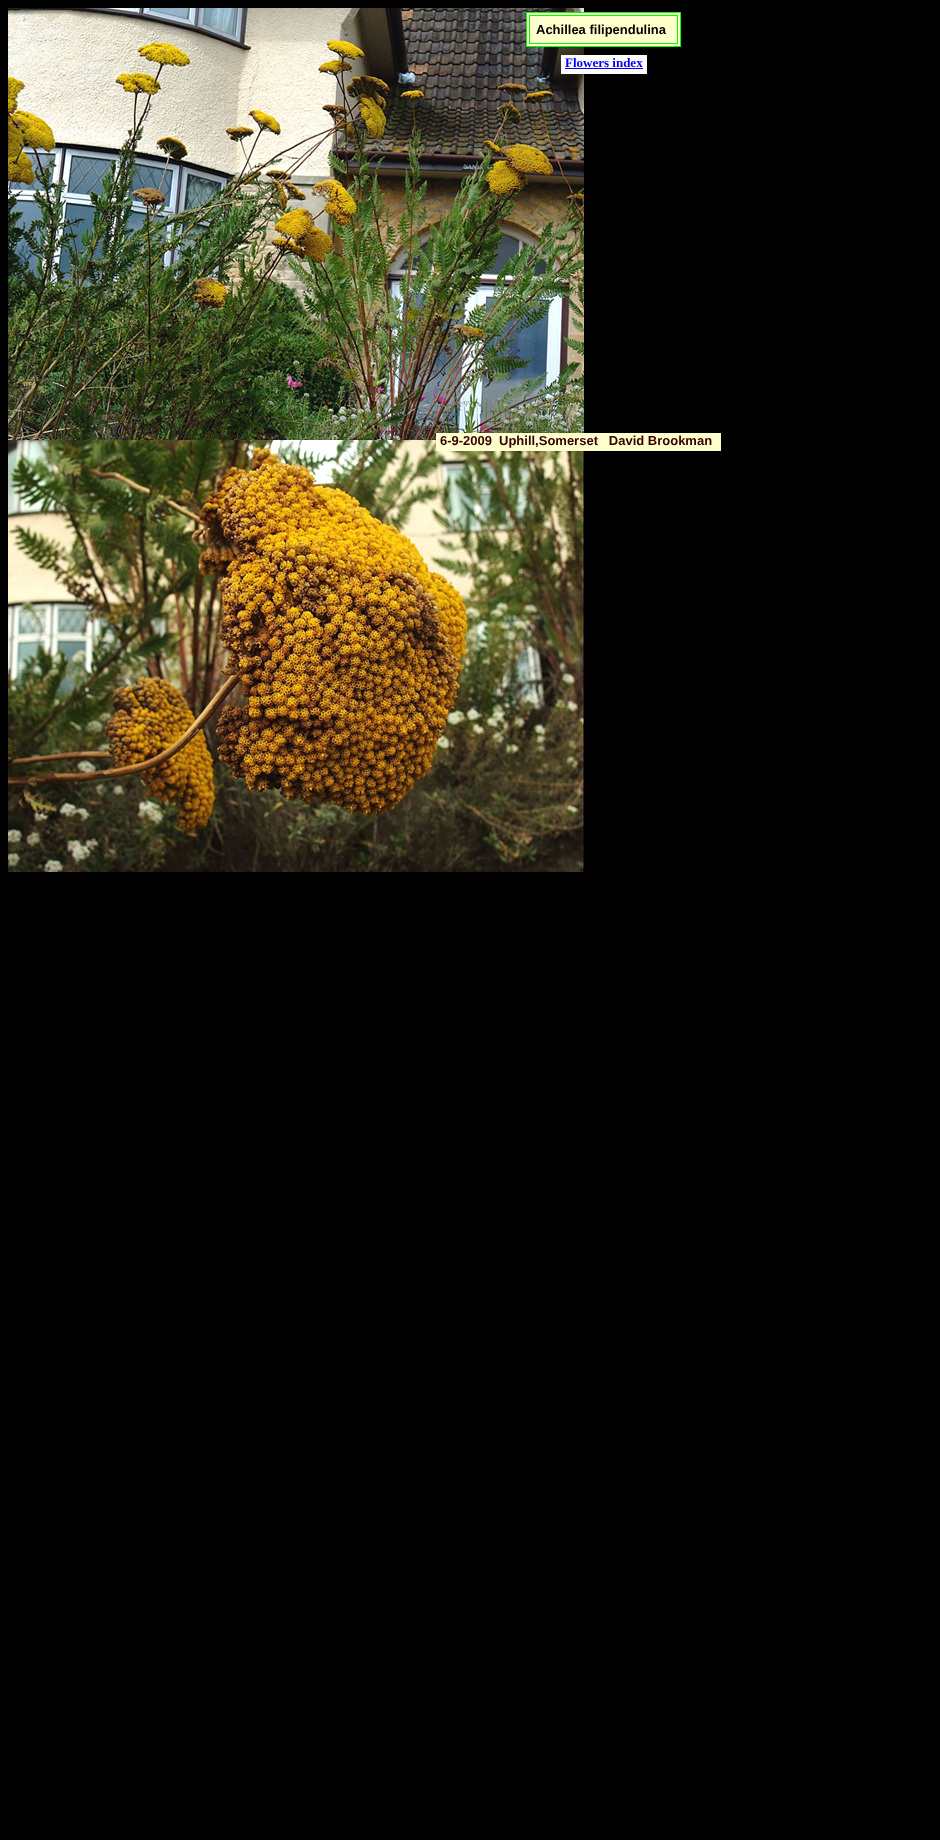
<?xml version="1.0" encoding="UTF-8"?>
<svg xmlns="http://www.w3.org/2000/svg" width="940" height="1840">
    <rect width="100%" height="100%" fill="#000000"/>
    <image x="8" y="8" width="576" height="432" href="img_01.png"/>
    <rect x="526.5" y="12.5" width="154" height="34" fill="#FFFFCC" stroke="#00FF00"/>
    <rect x="529.5" y="15.5" width="148" height="28" fill="none" stroke="#00FF00"/>
    <text x="536" y="34" font-family="Liberation Sans" font-size="13" font-weight="700" fill="#000000">Achillea filipendulina</text>
    <rect x="561" y="55" width="86" height="19" fill="#FFFFFF"/>
    <text x="565" y="67" font-family="Liberation Serif" font-size="13" font-weight="700" fill="#0000EE">Flowers index</text>
    <rect x="565" y="68" width="78" height="1" fill="#0000EE"/>
    <image x="8" y="440" width="576" height="432" href="img_02.png"/>
    <rect x="436" y="433" width="285" height="18" fill="#FFFFCC"/>
    <text x="440" y="445" font-family="Liberation Sans" font-size="13" font-weight="700" fill="#330000">6-9-2009</text>
    <text x="499" y="445" font-family="Liberation Sans" font-size="13" font-weight="700" fill="#330000" xml:space="preserve">Uphill,Somerset   David Brookman</text>
</svg>
